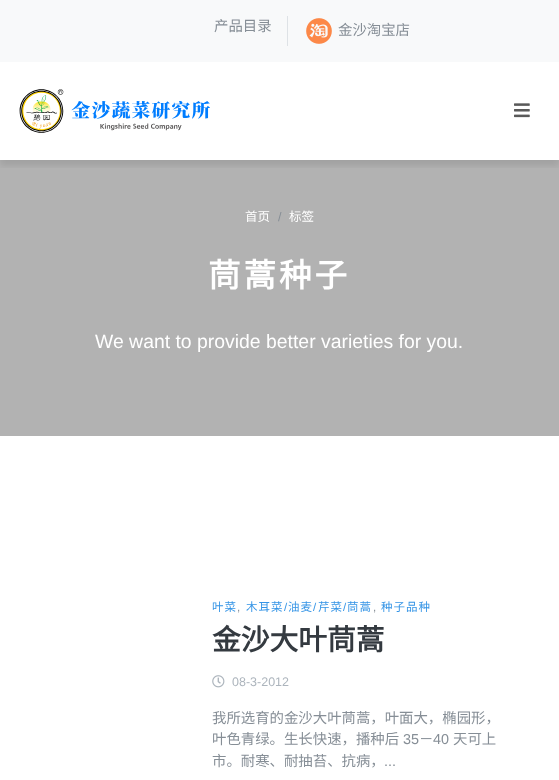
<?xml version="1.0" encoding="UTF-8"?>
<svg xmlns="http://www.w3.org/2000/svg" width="559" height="780">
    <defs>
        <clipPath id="clip1"><rect x="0" y="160" width="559" height="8"/></clipPath>
        <filter id="blur1" x="-50%" y="-200%" width="200%" height="500%"><feGaussianBlur stdDeviation="3"/></filter>
    </defs>
    <rect width="100%" height="100%" fill="#FFFFFF"/>
    <rect x="0" y="0" width="559" height="62" fill="#F8F9FA"/>
    <rect x="287" y="16" width="1" height="30" fill="#DEE2E6"/>
    <text x="214" y="31" font-family="Noto Sans CJK SC" font-size="14.4" fill="#868E96">产品目录</text>
    <image x="306" y="18" width="26" height="26" href="img_01.png"/>
    <text x="338" y="35" font-family="Noto Sans CJK SC" font-size="14.4" fill="#868E96">金沙淘宝店</text>
    <g clip-path="url(#clip1)">
        <rect x="0" y="68" width="559" height="98" fill="#000000" fill-opacity="0.09" filter="url(#blur1)"/>
    </g>
    <image x="19" y="89" width="191" height="44" href="img_02.png"/>
    <image x="514" y="103" width="16" height="15" href="img_03.png"/>
    <rect x="0" y="160" width="559" height="276" fill="#000000" fill-opacity="0.3"/>
    <text x="245" y="221" font-family="Noto Sans CJK SC" font-size="12.5" fill="#FFFFFF">首页</text>
    <text x="278" y="221" font-family="Liberation Sans" font-size="12.5" fill="#868E96">/</text>
    <text x="289" y="221" font-family="Noto Sans CJK SC" font-size="12.5" fill="#FFFFFF">标签</text>
    <text x="208" y="287" font-family="Noto Sans CJK SC" font-size="32.5" font-weight="700" letter-spacing="3" fill="#FFFFFF">茼蒿种子</text>
    <text x="95" y="348" font-family="Liberation Sans" font-size="19.4" fill="#FFFFFF">We want to provide better varieties for you.</text>
    <text x="212" y="611" font-family="Noto Sans CJK SC" font-size="11.5" letter-spacing="1" fill="#3494E6">叶菜</text>
    <text x="237" y="611" font-family="Liberation Sans" font-size="11.5" letter-spacing="1" fill="#868E96">,</text>
    <text x="246" y="611" font-family="Noto Sans CJK SC" font-size="11.5" letter-spacing="1" fill="#3494E6">木耳菜</text>
    <text x="284" y="611" font-family="Liberation Sans" font-size="11.5" letter-spacing="1" fill="#3494E6">/</text>
    <text x="288" y="611" font-family="Noto Sans CJK SC" font-size="11.5" letter-spacing="1" fill="#3494E6">油麦</text>
    <text x="313" y="611" font-family="Liberation Sans" font-size="11.5" letter-spacing="1" fill="#3494E6">/</text>
    <text x="318" y="611" font-family="Noto Sans CJK SC" font-size="11.5" letter-spacing="1" fill="#3494E6">芹菜</text>
    <text x="343" y="611" font-family="Liberation Sans" font-size="11.5" letter-spacing="1" fill="#3494E6">/</text>
    <text x="347" y="611" font-family="Noto Sans CJK SC" font-size="11.5" letter-spacing="1" fill="#3494E6">茼蒿</text>
    <text x="373" y="611" font-family="Liberation Sans" font-size="11.5" letter-spacing="1" fill="#868E96">,</text>
    <text x="381" y="611" font-family="Noto Sans CJK SC" font-size="11.5" letter-spacing="1" fill="#3494E6">种子品种</text>
    <text x="212" y="650" font-family="Noto Sans CJK SC" font-size="28.75" font-weight="700" fill="#343A40">金沙大叶茼蒿</text>
    <image x="212" y="675" width="13" height="13" href="img_04.png"/>
    <text x="232" y="686" font-family="Liberation Sans" font-size="12.5" fill="#ADB5BD">08-3-2012</text>
    <text font-family="Noto Sans CJK SC" font-size="14.4" fill="#868E96">
        <tspan x="212" y="723">我所选育的金沙大叶茼蒿，叶面大，椭园形，</tspan>
        <tspan x="212" y="744">叶色青绿。生长快速，播种后</tspan>
    </text>
    <text x="403" y="744" font-family="Liberation Sans" font-size="14.4" fill="#868E96">35</text>
    <text x="419" y="744" font-family="Noto Sans CJK SC" font-size="14.4" fill="#868E96">－</text>
    <text x="433" y="744" font-family="Liberation Sans" font-size="14.4" fill="#868E96">40</text>
    <text x="453" y="744" font-family="Noto Sans CJK SC" font-size="14.4" fill="#868E96">天可上</text>
    <text x="212" y="766" font-family="Noto Sans CJK SC" font-size="14.4" fill="#868E96">市。耐寒、耐抽苔、抗病，</text>
    <text x="384" y="766" font-family="Liberation Sans" font-size="14.4" fill="#868E96">...</text>
</svg>
